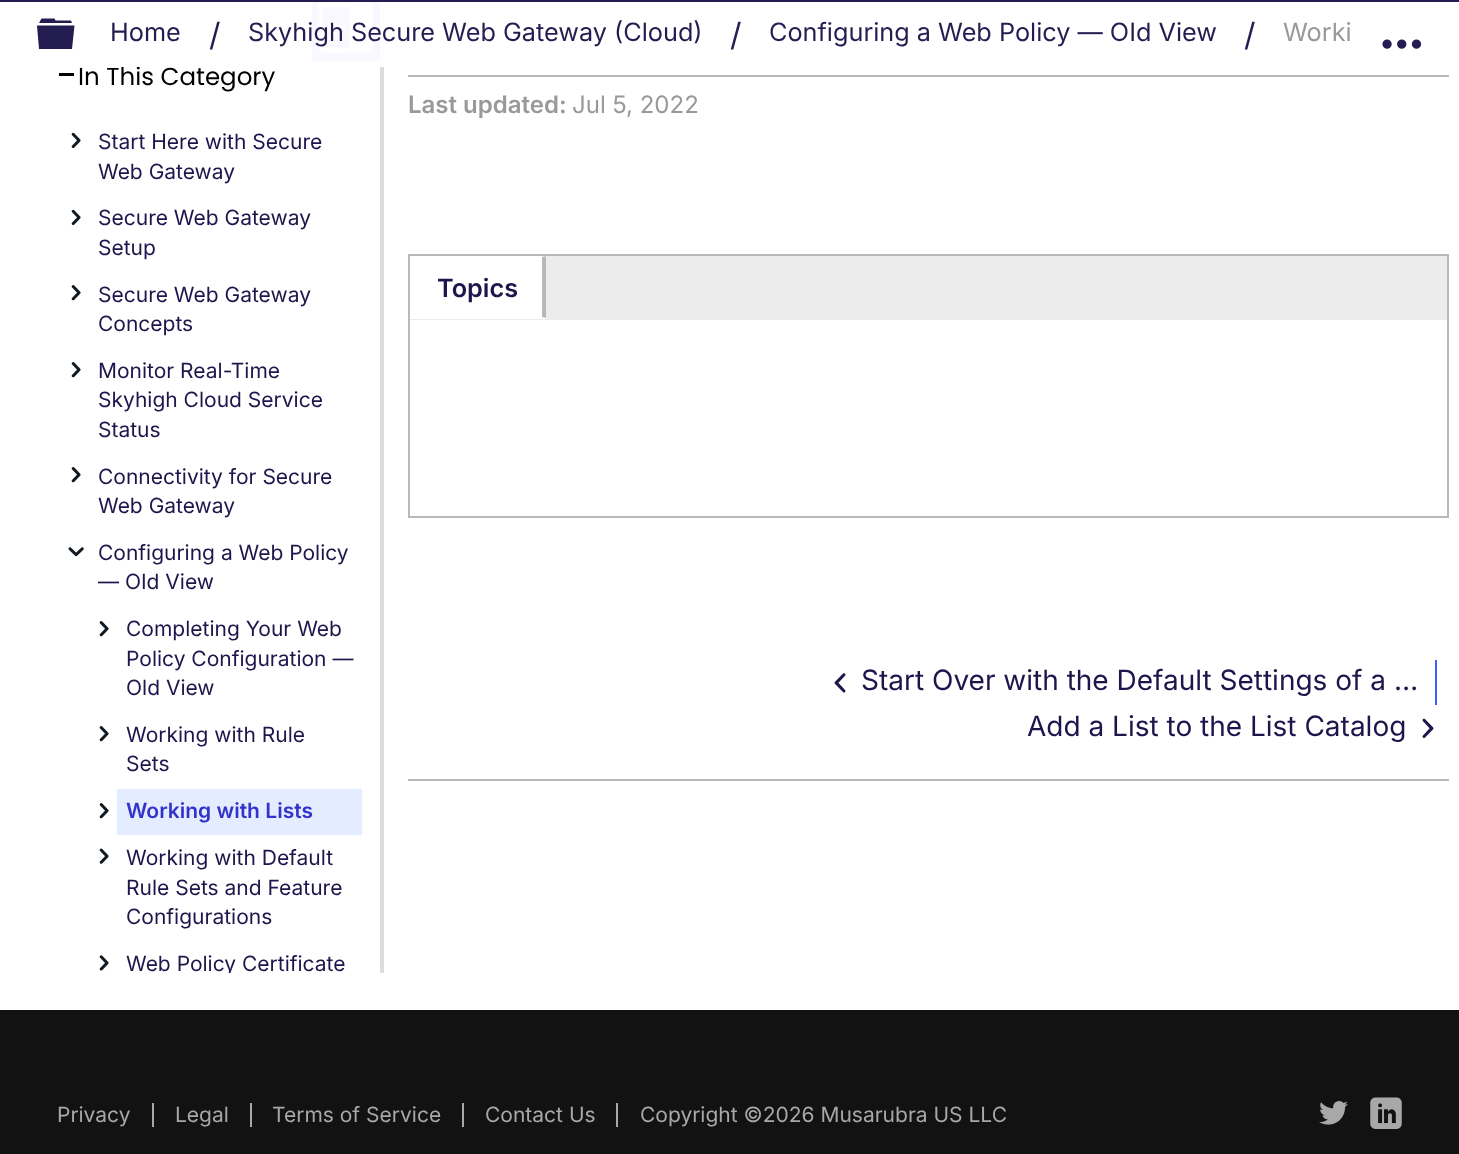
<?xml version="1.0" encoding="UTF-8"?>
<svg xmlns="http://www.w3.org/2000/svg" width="1459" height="1154">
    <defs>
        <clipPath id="clip1"><rect x="117" y="942" width="245" height="31"/></clipPath>
    </defs>
    <rect width="100%" height="100%" fill="#FFFFFF"/>
    <rect x="380" y="0" width="4" height="973" fill="#DDDDDD"/>
    <rect x="312" y="0" width="68" height="61" fill="#3333CC"/>
    <image x="317" y="1" width="57" height="53" href="img_02.png"/>
    <text x="78" y="85" font-family="Poppins" font-size="24.5" fill="#000000">In This Category</text>
    <rect x="121" y="0" width="263" height="67" fill="#FFFFFF" fill-opacity="0.97"/>
    <rect x="0" y="0" width="1459" height="2" fill="#1C164C" fill-opacity="0.97"/>
    <path d="M 37 25.5 H 74.5 L 72 49 H 39 Z M 71 20.5 L 72 23 H 39 L 41.5 18.5 H 54.5 L 55.5 20.5 Z" fill="#231D51"/>
    <text x="110" y="41" font-family="Inter" font-size="25.25" fill="#231D51">Home</text>
    <text x="209" y="46" font-family="Inter" font-size="32" fill="#231D51">/</text>
    <text x="248" y="41" font-family="Inter" font-size="25.25" fill="#231D51">Skyhigh Secure Web Gateway (Cloud)</text>
    <text x="730" y="46" font-family="Inter" font-size="32" fill="#231D51">/</text>
    <text x="769" y="41" font-family="Inter" font-size="25.25" fill="#231D51">Configuring a Web Policy — OId View</text>
    <text x="1244" y="46" font-family="Inter" font-size="32" fill="#231D51">/</text>
    <text x="1283" y="41" font-family="Inter" font-size="25.25" fill="#999999">Worki</text>
    <image x="1382" y="39" width="40" height="10" href="img_01.png"/>
    <rect x="59" y="73" width="15" height="3" fill="#000000"/>
    <image x="71" y="132" width="10" height="16" href="img_03.png"/>
    <text font-family="Inter" font-size="21" fill="#1C164C">
        <tspan x="98" y="149">Start Here with Secure</tspan>
        <tspan x="98" y="179">Web Gateway</tspan>
    </text>
    <image x="71" y="209" width="10" height="16" href="img_03.png"/>
    <text font-family="Inter" font-size="21" fill="#1C164C">
        <tspan x="98" y="225">Secure Web Gateway</tspan>
        <tspan x="98" y="255">Setup</tspan>
    </text>
    <image x="71" y="285" width="10" height="16" href="img_04.png"/>
    <text font-family="Inter" font-size="21" fill="#1C164C">
        <tspan x="98" y="302">Secure Web Gateway</tspan>
        <tspan x="98" y="331">Concepts</tspan>
    </text>
    <image x="71" y="362" width="10" height="16" href="img_04.png"/>
    <text font-family="Inter" font-size="21" fill="#1C164C">
        <tspan x="98" y="378">Monitor Real-Time</tspan>
        <tspan x="98" y="407">Skyhigh Cloud Service</tspan>
        <tspan x="98" y="437">Status</tspan>
    </text>
    <image x="71" y="467" width="10" height="16" href="img_04.png"/>
    <text font-family="Inter" font-size="21" fill="#1C164C">
        <tspan x="98" y="484">Connectivity for Secure</tspan>
        <tspan x="98" y="513">Web Gateway</tspan>
    </text>
    <image x="68" y="547" width="16" height="10" href="img_05.png"/>
    <text font-family="Inter" font-size="21" fill="#1C164C">
        <tspan x="98" y="560">Configuring a Web Policy</tspan>
        <tspan x="98" y="589">— OId View</tspan>
    </text>
    <image x="99" y="621" width="10" height="16" href="img_04.png"/>
    <text font-family="Inter" font-size="21" fill="#1C164C">
        <tspan x="126" y="636">Completing Your Web</tspan>
        <tspan x="126" y="666">Policy Configuration —</tspan>
        <tspan x="126" y="695">Old View</tspan>
    </text>
    <image x="99" y="726" width="10" height="16" href="img_04.png"/>
    <text font-family="Inter" font-size="21" fill="#1C164C">
        <tspan x="126" y="742">Working with Rule</tspan>
        <tspan x="126" y="771">Sets</tspan>
    </text>
    <image x="99" y="803" width="10" height="16" href="img_04.png"/>
    <rect x="117" y="789" width="245" height="46" fill="#E3EDFF"/>
    <text x="126" y="818" font-family="Inter" font-size="21" font-weight="600" fill="#3333CC">Working with Lists</text>
    <image x="99" y="848" width="10" height="16" href="img_06.png"/>
    <text font-family="Inter" font-size="21" fill="#1C164C">
        <tspan x="126" y="865">Working with Default</tspan>
        <tspan x="126" y="895">Rule Sets and Feature</tspan>
        <tspan x="126" y="924">Configurations</tspan>
    </text>
    <image x="99" y="955" width="10" height="16" href="img_07.png"/>
    <g clip-path="url(#clip1)">
        <text x="126" y="971" font-family="Inter" font-size="21" fill="#1C164C">Web Policy Certificate</text>
    </g>
    <rect x="408" y="75" width="1041" height="2" fill="#BBB8B8"/>
    <text x="408" y="113" font-family="Inter" font-size="24" font-weight="600" fill="#999999">Last updated:</text>
    <text x="572" y="113" font-family="Inter" font-size="24" fill="#999999">Jul 5, 2022</text>
    <rect x="409" y="255" width="1039" height="262" fill="none" stroke="#BBB8B8" stroke-width="2"/>
    <rect x="410" y="256" width="1037" height="64" fill="#EDECEC"/>
    <rect x="410" y="256" width="136" height="63" fill="#FFFFFF"/>
    <path d="M 546 256 V 318 L 542 317 V 257 Z" fill="#BBB8B8"/>
    <text x="437" y="297" font-family="Inter" font-size="25.25" font-weight="600" fill="#1C164C">Topics</text>
    <rect x="408" y="779" width="1041" height="2" fill="#BBB8B8"/>
    <rect x="1435" y="660" width="2" height="45" fill="#3664F4"/>
    <image x="834" y="673" width="12" height="20" href="img_08.png"/>
    <text x="861" y="690" font-family="Inter" font-size="28" fill="#1C164C">Start Over with the Default Settings of a …</text>
    <text x="1027" y="736" font-family="Inter" font-size="28" fill="#1C164C">Add a List to the List Catalog</text>
    <image x="1422" y="718" width="12" height="20" href="img_09.png"/>
    <rect x="0" y="1010" width="1459" height="144" fill="#121212"/>
    <rect x="152" y="1103" width="2" height="24" fill="#A8A8A8"/>
    <text x="57" y="1122" font-family="Inter" font-size="21" fill="#A8A8A8">Privacy</text>
    <rect x="250" y="1103" width="2" height="24" fill="#A8A8A8"/>
    <text x="175" y="1122" font-family="Inter" font-size="21" fill="#A8A8A8">Legal</text>
    <rect x="462" y="1103" width="2" height="24" fill="#A8A8A8"/>
    <text x="272" y="1122" font-family="Inter" font-size="21" fill="#A8A8A8">Terms of Service</text>
    <rect x="616" y="1103" width="2" height="24" fill="#A8A8A8"/>
    <text x="485" y="1122" font-family="Inter" font-size="21" fill="#A8A8A8">Contact Us</text>
    <text x="640" y="1122" font-family="Inter" font-size="21" fill="#A8A8A8">Copyright ©2026 Musarubra US LLC</text>
    <image x="1319" y="1101" width="29" height="24" href="img_10.png"/>
    <image x="1370" y="1097" width="32" height="32" href="img_11.png"/>
</svg>
